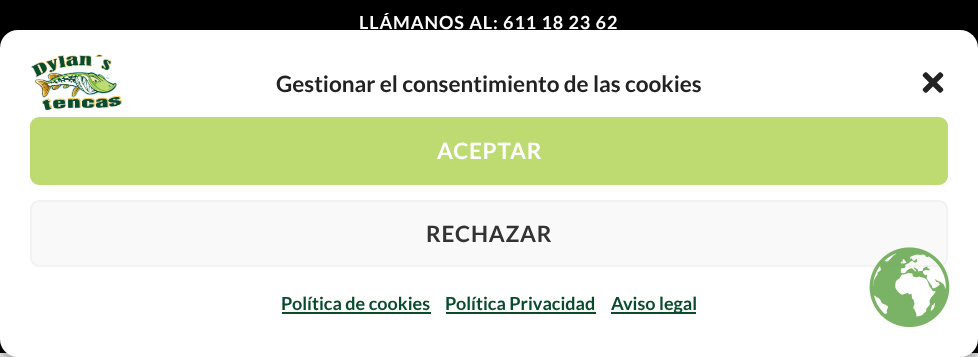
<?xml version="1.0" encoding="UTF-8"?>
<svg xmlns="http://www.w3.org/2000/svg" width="978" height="357">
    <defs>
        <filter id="blur1" x="-50%" y="-200%" width="200%" height="500%"><feGaussianBlur stdDeviation="4.5"/></filter>
        <filter id="blur2" x="-50%" y="-200%" width="200%" height="500%"><feGaussianBlur stdDeviation="15"/></filter>
    </defs>
    <rect width="100%" height="100%" fill="#FFFFFF"/>
    <rect x="0" y="0" width="978" height="353" fill="#000000"/>
    <text x="359" y="29" font-family="Lato" font-size="18" font-weight="700" letter-spacing="0.9" fill="#FFFFFF">LLÁMANOS AL: 611 18 23 62</text>
    <rect x="0" y="39" width="978" height="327" rx="18" fill="#000000" fill-opacity="0.23" filter="url(#blur1)"/>
    <rect x="0" y="45" width="978" height="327" rx="18" fill="#000000" fill-opacity="0.19" filter="url(#blur2)"/>
    <rect x="0" y="30" width="978" height="327" rx="18" fill="#FFFFFF"/>
    <image x="31" y="54" width="91" height="57" href="img_01.png"/>
    <text x="276" y="92" font-family="Lato" font-size="22.5" font-weight="700" fill="#222222">Gestionar el consentimiento de las cookies</text>
    <image x="922" y="72" width="22" height="21" href="img_02.png"/>
    <rect x="31" y="118" width="916" height="66" rx="8" fill="#BEDB72" stroke="#BEDB72" stroke-width="2"/>
    <text x="437" y="159" font-family="Lato" font-size="22.5" font-weight="700" letter-spacing="0.75" fill="#FFFFFF">ACEPTAR</text>
    <rect x="31" y="201" width="916" height="65" rx="8" fill="#F9F9F9" stroke="#F2F2F2" stroke-width="2"/>
    <text x="426" y="242" font-family="Lato" font-size="22.5" font-weight="700" letter-spacing="0.75" fill="#333333">RECHAZAR</text>
    <text x="281" y="310" font-family="Lato" font-size="18" font-weight="700" fill="#0A4B2D">Política de cookies</text>
    <rect x="282" y="312" width="149" height="2" fill="#0A4B2D"/>
    <text x="445" y="310" font-family="Lato" font-size="18" font-weight="700" fill="#0A4B2D">Política Privacidad</text>
    <rect x="446" y="312" width="150" height="2" fill="#0A4B2D"/>
    <rect x="611" y="312" width="85" height="2" fill="#0A4B2D"/>
    <text x="611" y="310" font-family="Lato" font-size="18" font-weight="700" fill="#0A4B2D">Aviso legal</text>
    <image x="869" y="247" width="81" height="81" href="img_03.png"/>
</svg>
